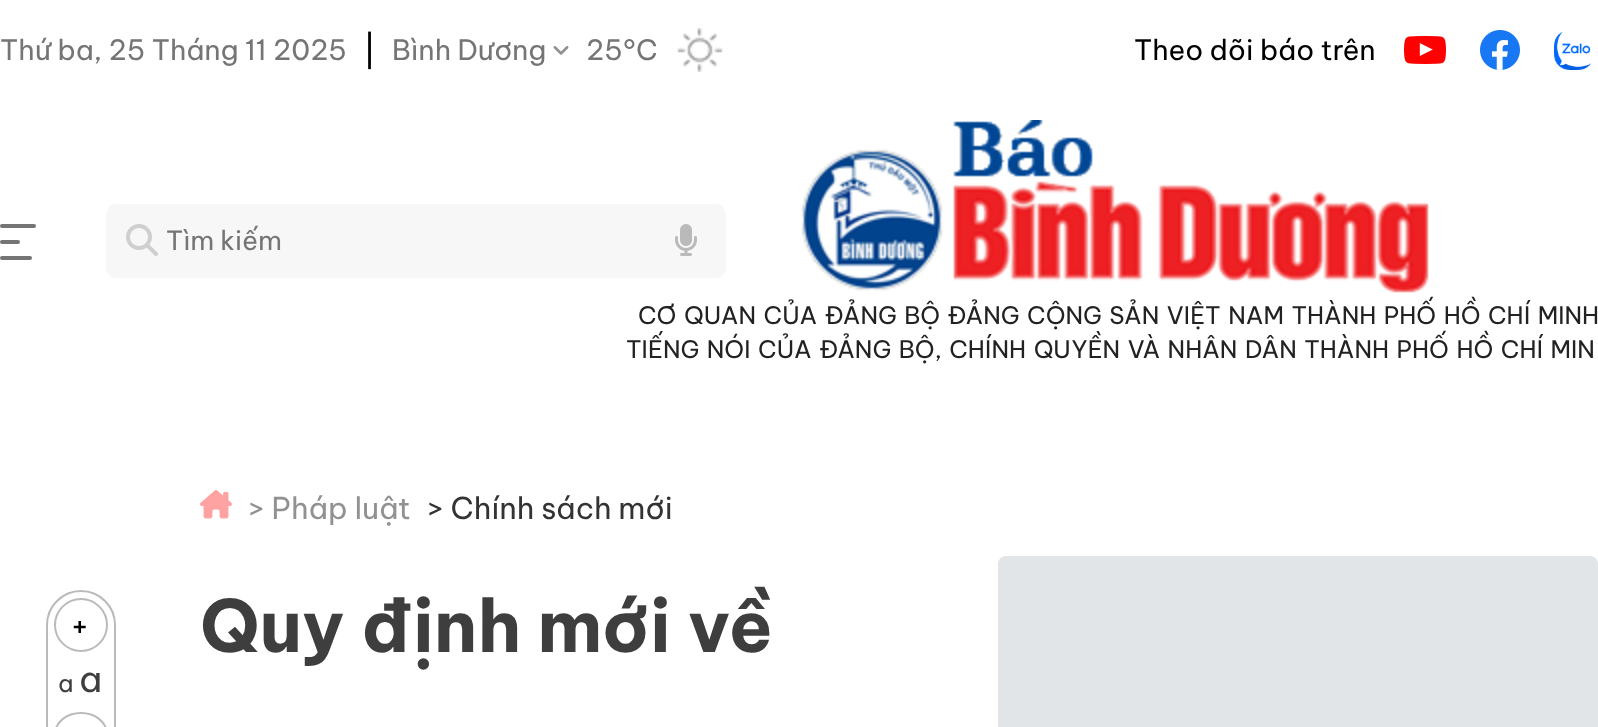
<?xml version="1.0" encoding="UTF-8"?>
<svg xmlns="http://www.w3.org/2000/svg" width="1598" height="727">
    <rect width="100%" height="100%" fill="#FFFFFF"/>
    <text x="0" y="60" font-family="Be Vietnam Pro" font-size="28" fill="#757575">Thứ ba, 25 Tháng 11 2025</text>
    <text x="363" y="62" font-family="Be Vietnam Pro" font-size="32" fill="#000000">|</text>
    <text x="392" y="60" font-family="Be Vietnam Pro" font-size="28" fill="#757575">Bình Dương</text>
    <image x="553" y="46" width="16" height="9" href="img_01.png"/>
    <text x="586" y="60" font-family="Be Vietnam Pro" font-size="28" fill="#757575">25°C</text>
    <image x="677" y="28" width="46" height="44" href="img_02.png"/>
    <text x="1134" y="60" font-family="Be Vietnam Pro" font-size="28" fill="#000000">Theo dõi báo trên</text>
    <image x="1404" y="36" width="42" height="28" href="img_03.png"/>
    <image x="1480" y="30" width="40" height="40" href="img_04.png"/>
    <image x="1554" y="31" width="37" height="39" href="img_05.png"/>
    <rect x="0" y="224" width="36" height="4" rx="2" fill="#757575"/>
    <rect x="0" y="240" width="20" height="4" rx="2" fill="#757575"/>
    <rect x="0" y="256" width="32" height="4" rx="2" fill="#757575"/>
    <rect x="106" y="204" width="620" height="74" rx="10" fill="#F7F7F7"/>
    <image x="126" y="224" width="32" height="32" href="img_06.png"/>
    <text x="166" y="250" font-family="Be Vietnam Pro" font-size="26.5" fill="#757575">Tìm kiếm</text>
    <image x="675" y="224" width="22" height="32" href="img_07.png"/>
    <image x="801" y="120" width="628" height="173" href="img_08.png"/>
    <text x="638" y="324" word-spacing="2" font-family="Be Vietnam Pro" font-size="24" fill="#222222">CƠ QUAN CỦA ĐẢNG BỘ ĐẢNG CỘNG SẢN VIỆT NAM THÀNH PHỐ HỒ CHÍ MINH</text>
    <text x="626" y="358" word-spacing="2" font-family="Be Vietnam Pro" font-size="24" fill="#222222">TIẾNG NÓI CỦA ĐẢNG BỘ, CHÍNH QUYỀN VÀ NHÂN DÂN THÀNH PHỐ HỒ CHÍ MIN</text>
    <rect x="47" y="591" width="68" height="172" rx="34" fill="none" stroke="#BABABA" stroke-width="2"/>
    <circle cx="81" cy="625" r="26" fill="none" stroke="#BABABA" stroke-width="2"/>
    <text x="70" y="637" font-family="Be Vietnam Pro" font-size="32" fill="#000000">+</text>
    <text x="58" y="692" font-family="Be Vietnam Pro" font-size="24" fill="#3E3E3E">a</text>
    <text x="79" y="692" font-family="Be Vietnam Pro" font-size="36" fill="#3E3E3E">a</text>
    <rect x="55" y="713" width="52" height="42" rx="26" fill="none" stroke="#BABABA" stroke-width="2"/>
    <image x="200" y="490" width="32" height="29" href="img_09.png"/>
    <text x="248" y="519" font-family="Be Vietnam Pro" font-size="30" fill="#919191">&gt; Pháp luật</text>
    <text x="427" y="519" font-family="Be Vietnam Pro" font-size="30" fill="#333333">&gt; Chính sách mới</text>
    <text x="200" y="652" font-family="Be Vietnam Pro" font-size="72" font-weight="700" fill="#3E3E3E">Quy định mới về</text>
    <rect x="998" y="556" width="600" height="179" rx="8" fill="#E2E5E7"/>
</svg>
